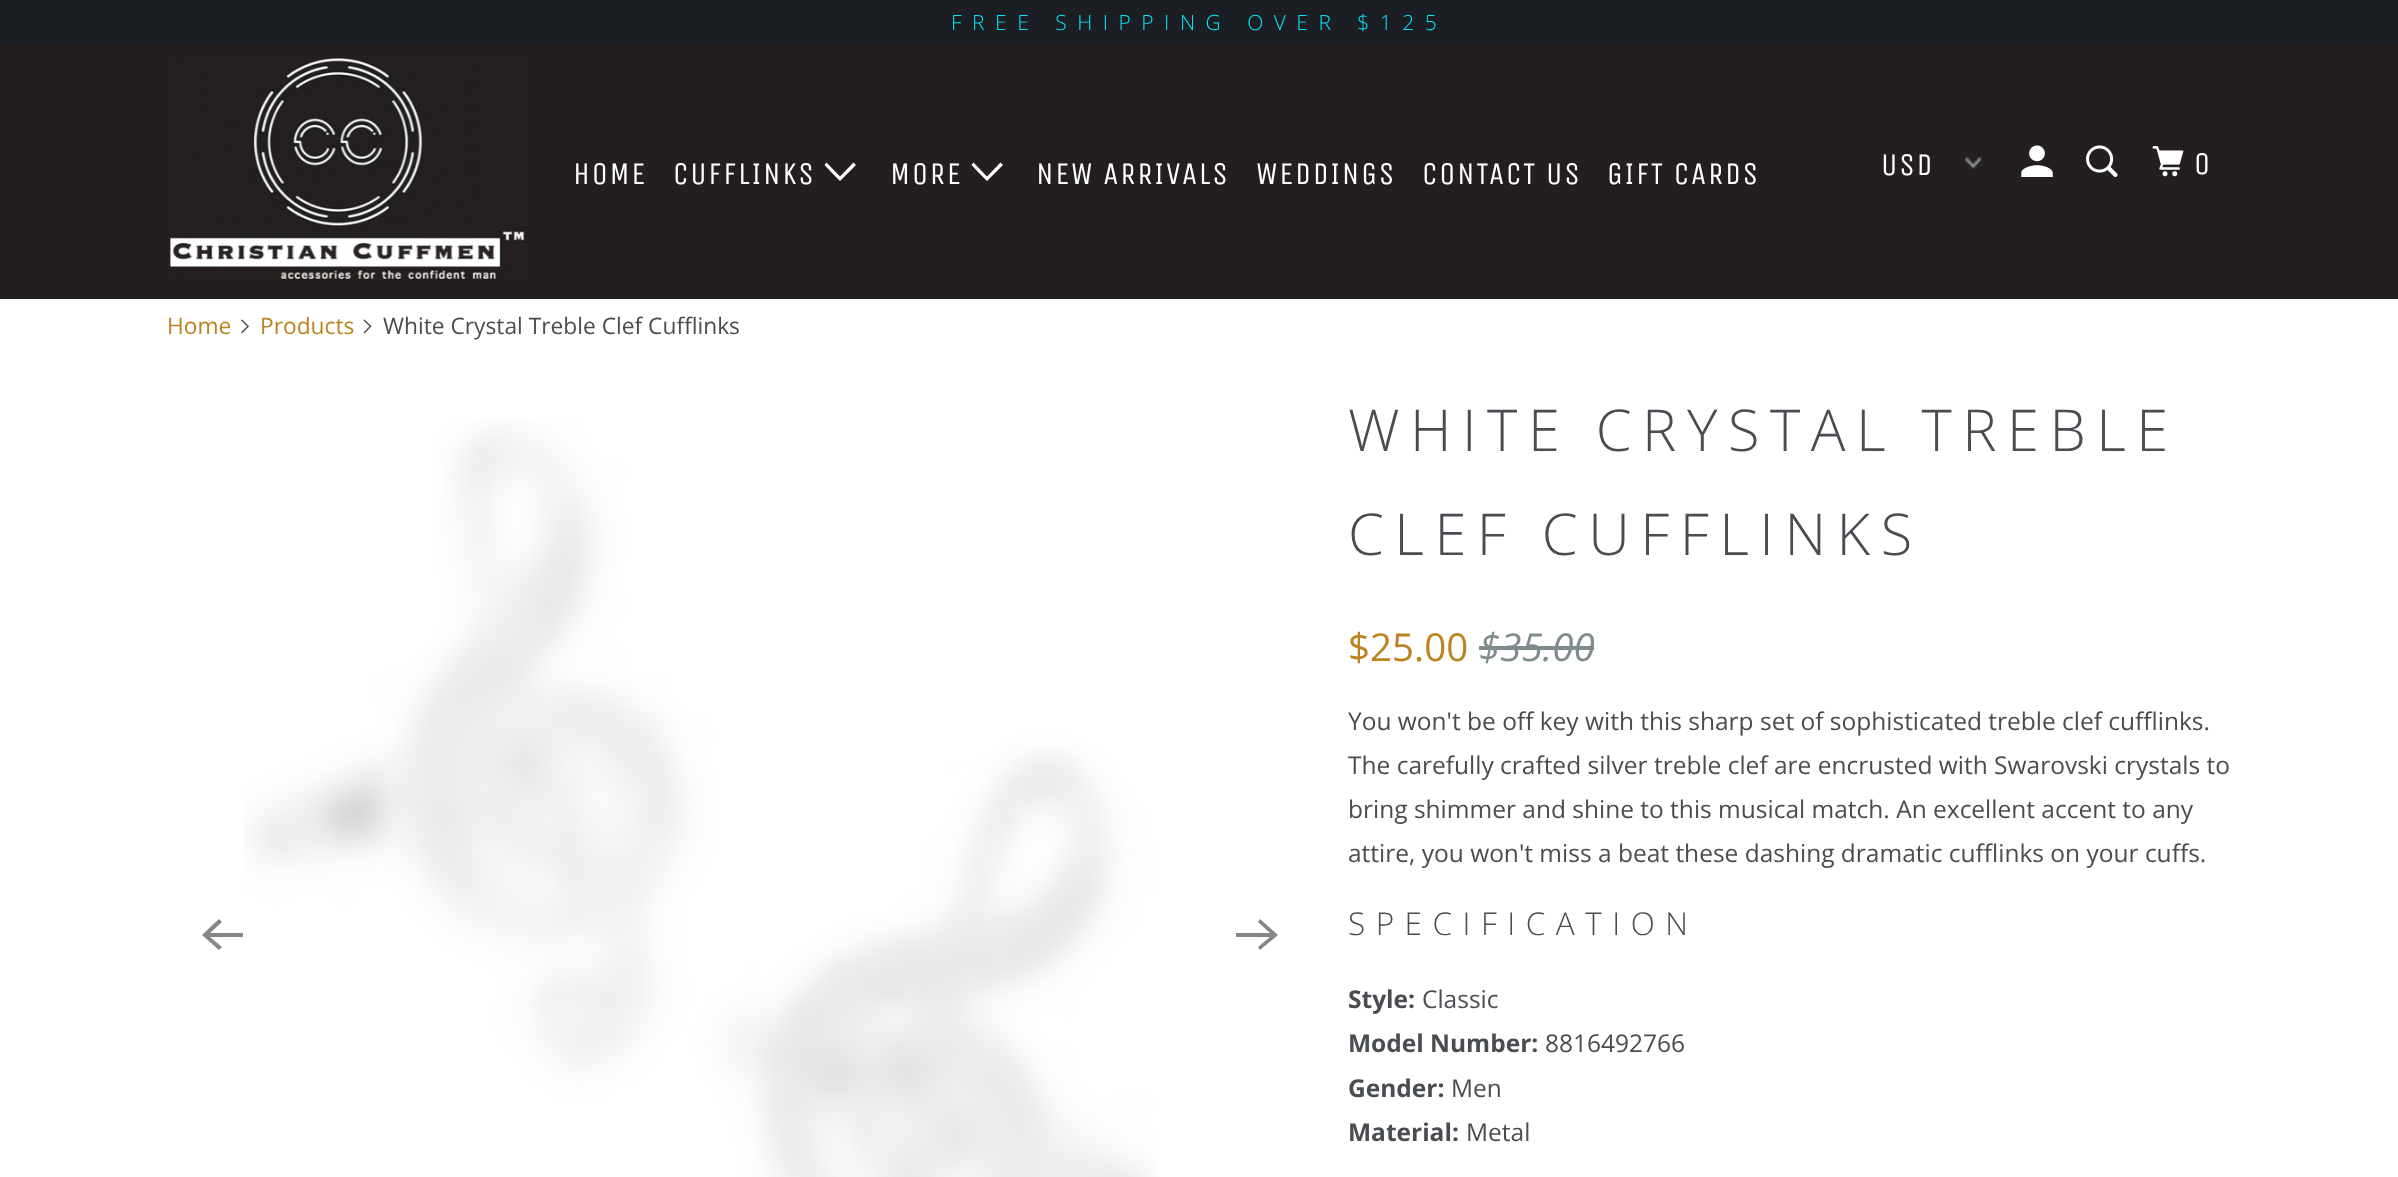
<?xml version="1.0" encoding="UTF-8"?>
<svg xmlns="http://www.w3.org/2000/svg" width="2398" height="1177">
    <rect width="100%" height="100%" fill="#FFFFFF"/>
    <rect x="0" y="0" width="2398" height="46" fill="#1B1F23"/>
    <text x="951" y="30" font-family="Open Sans" font-size="21" font-weight="300" letter-spacing="10.5" fill="#03E5F7">FREE SHIPPING OVER $125</text>
    <rect x="0" y="46" width="2398" height="253" fill="#241F1F"/>
    <image x="168" y="56" width="359" height="225" href="img_01.png"/>
    <text x="573" y="184" font-family="Unica One" font-size="31.5" letter-spacing="1.75" fill="#FFFFFF">HOME</text>
    <text x="673" y="184" font-family="Unica One" font-size="31.5" letter-spacing="1.75" fill="#FFFFFF">CUFFLINKS</text>
    <path d="M 832 173 L 824.5 165 L 826.5 162.5 L 840 176.5 L 853.5 162.5 L 856 165 L 840 181 Z" fill="#FFFFFF"/>
    <text x="890" y="184" font-family="Unica One" font-size="31.5" letter-spacing="1.75" fill="#FFFFFF">MORE</text>
    <path d="M 979 173 L 971.5 165 L 973.5 162.5 L 987 176.5 L 1000.5 162.5 L 1003 165 L 987 181 Z" fill="#FFFFFF"/>
    <text x="1036" y="184" font-family="Unica One" font-size="31.5" letter-spacing="1.75" fill="#FFFFFF">NEW ARRIVALS</text>
    <text x="1256" y="184" font-family="Unica One" font-size="31.5" letter-spacing="1.75" fill="#FFFFFF">WEDDINGS</text>
    <text x="1422" y="184" font-family="Unica One" font-size="31.5" letter-spacing="1.75" fill="#FFFFFF">CONTACT US</text>
    <text x="1607" y="184" font-family="Unica One" font-size="31.5" letter-spacing="1.75" fill="#FFFFFF">GIFT CARDS</text>
    <image x="1964" y="157" width="18" height="12" href="img_02.png"/>
    <text x="1881" y="175" font-family="Unica One" font-size="31.5" letter-spacing="1.75" fill="#FFFFFF">USD</text>
    <image x="2021" y="145" width="32" height="32" href="img_03.png"/>
    <image x="2086" y="145" width="32" height="32" href="img_04.png"/>
    <image x="2152" y="146" width="32" height="31" href="img_05.png"/>
    <text x="2194" y="174" font-family="Unica One" font-size="31.5" letter-spacing="1.75" fill="#FFFFFF">0</text>
    <text x="167" y="334" font-family="Open Sans" font-size="22.75" fill="#BC8420">Home</text>
    <image x="241" y="319" width="8" height="15" href="img_06.png"/>
    <text x="260" y="334" font-family="Open Sans" font-size="22.75" fill="#BC8420">Products</text>
    <image x="363" y="319" width="9" height="15" href="img_07.png"/>
    <text x="383" y="334" font-family="Open Sans" font-size="22.75" fill="#494C50">White Crystal Treble Clef Cufflinks</text>
    <path d="M 243 933 H 210 L 222 922 L 219 919 L 202 935 L 219 950 L 222 947 L 210 937 H 243 Z" fill="#858585"/>
    <image x="243" y="418" width="916" height="759" href="img_08.png"/>
    <path d="M 1236 937 H 1270 L 1258 947 L 1260 950 L 1278 935 L 1260 919 L 1258 922 L 1270 933 H 1236 Z" fill="#858585"/>
    <text font-family="Open Sans" font-size="57.75" font-weight="300" letter-spacing="10.5" fill="#494C50">
        <tspan x="1348" y="451">WHITE CRYSTAL TREBLE</tspan>
        <tspan x="1348" y="555">CLEF CUFFLINKS</tspan>
    </text>
    <text x="1348" y="661" font-family="Open Sans" font-size="38.5" fill="#BC8420">$25.00</text>
    <text x="1479" y="661" font-family="Open Sans" font-size="38.5" font-style="italic" fill="#7F8C8D">$35.00</text>
    <rect x="1479" y="646" width="115" height="4" fill="#7F8C8D"/>
    <text font-family="Open Sans" font-size="24.5" fill="#494C50">
        <tspan x="1348" y="730">You won't be off key with this sharp set of sophisticated treble clef cufflinks.</tspan>
        <tspan x="1348" y="774">The carefully crafted silver treble clef are encrusted with Swarovski crystals to</tspan>
        <tspan x="1348" y="818">bring shimmer and shine to this musical match. An excellent accent to any</tspan>
        <tspan x="1348" y="862">attire, you won't miss a beat these dashing dramatic cufflinks on your cuffs.</tspan>
    </text>
    <text x="1348" y="935" font-family="Open Sans" font-size="31.5" font-weight="300" letter-spacing="10.5" fill="#494C50">SPECIFICATION</text>
    <text x="1348" y="1008" font-family="Open Sans" font-size="24.5" font-weight="700" fill="#494C50">Style:</text>
    <text x="1422" y="1008" font-family="Open Sans" font-size="24.5" fill="#494C50">Classic</text>
    <text x="1348" y="1052" font-family="Open Sans" font-size="24.5" font-weight="700" fill="#494C50">Model Number:</text>
    <text x="1545" y="1052" font-family="Open Sans" font-size="24.5" fill="#494C50">8816492766</text>
    <text x="1348" y="1097" font-family="Open Sans" font-size="24.5" font-weight="700" fill="#494C50">Gender:</text>
    <text x="1451" y="1097" font-family="Open Sans" font-size="24.5" fill="#494C50">Men</text>
    <text x="1348" y="1141" font-family="Open Sans" font-size="24.5" font-weight="700" fill="#494C50">Material:</text>
    <text x="1466" y="1141" font-family="Open Sans" font-size="24.5" fill="#494C50">Metal</text>
</svg>
